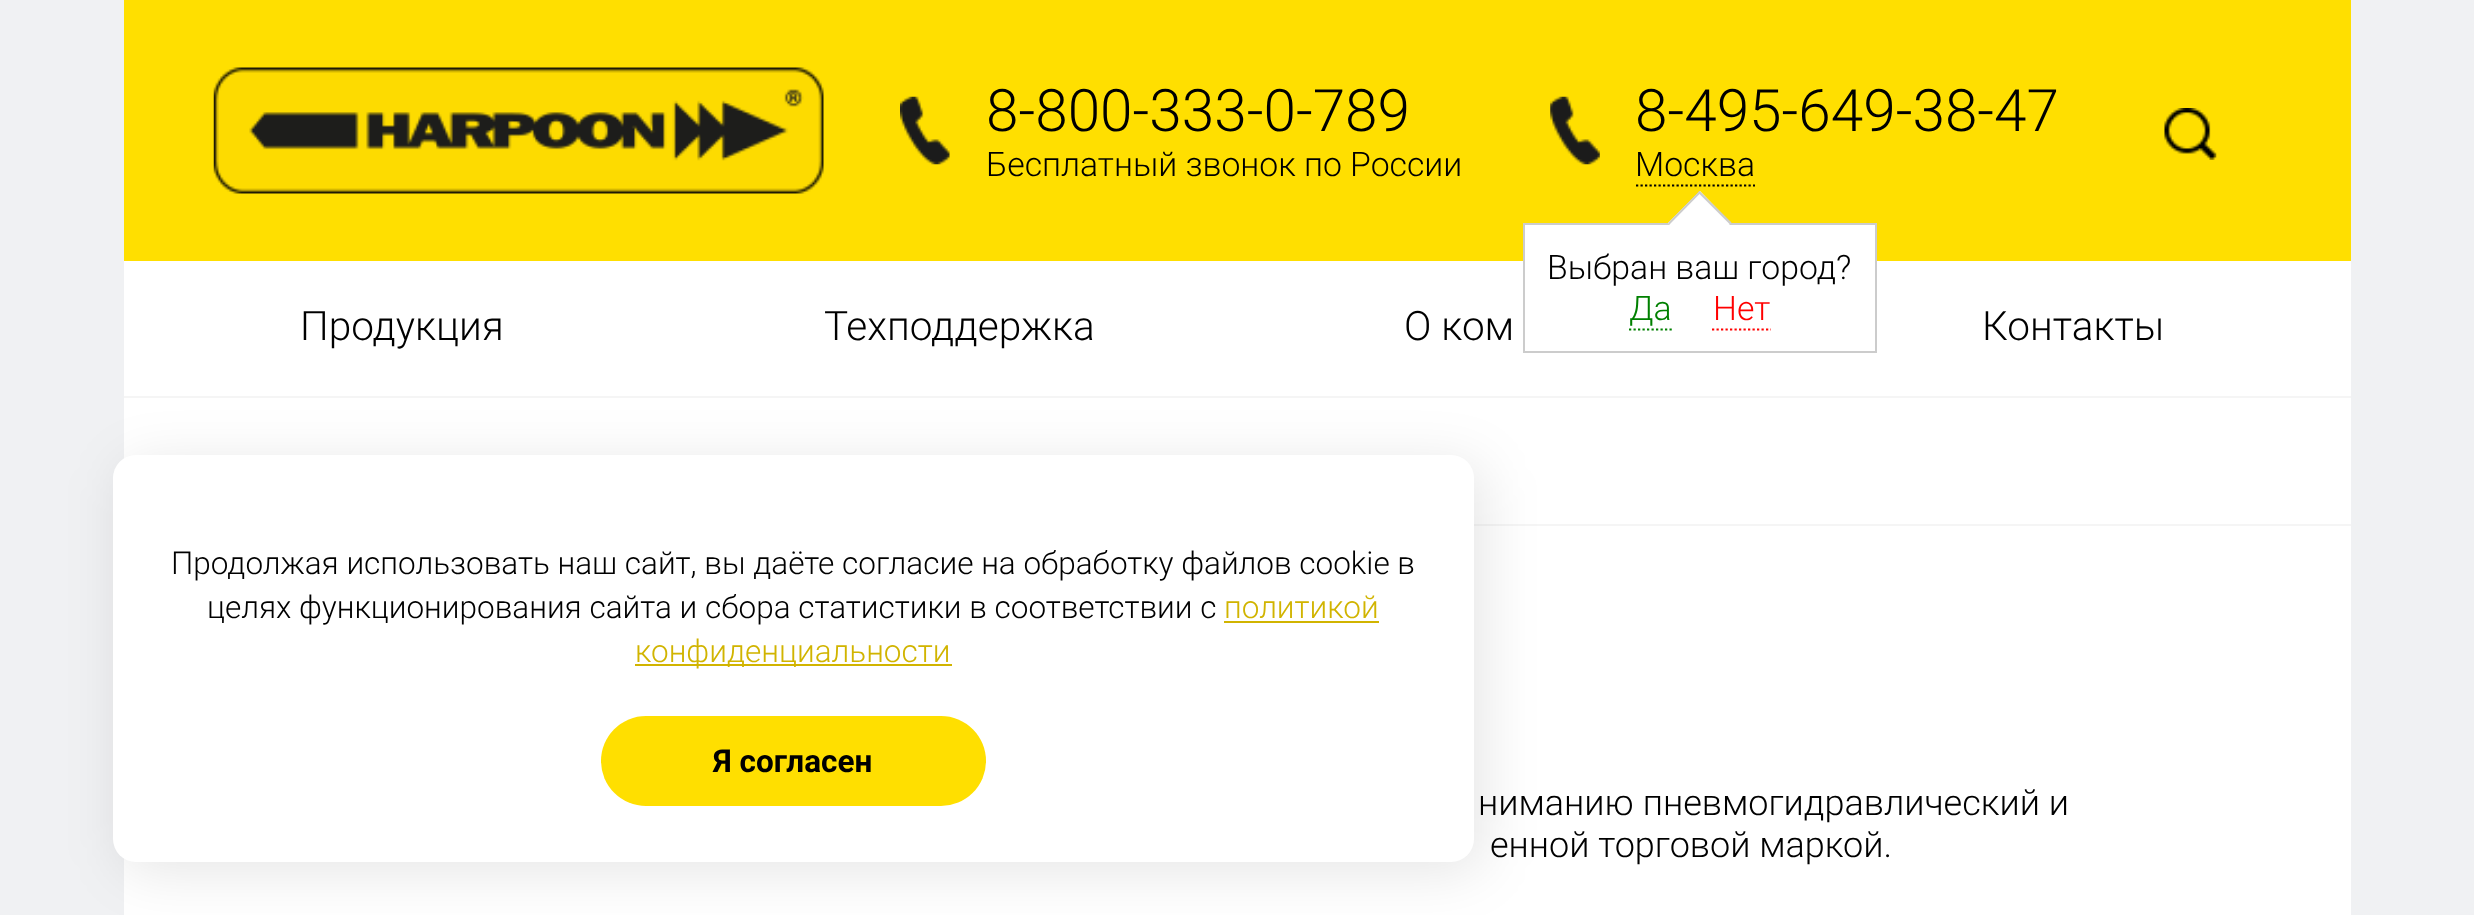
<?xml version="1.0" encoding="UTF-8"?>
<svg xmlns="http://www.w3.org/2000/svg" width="2474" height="915">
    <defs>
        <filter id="blur1" x="-50%" y="-200%" width="200%" height="500%"><feGaussianBlur stdDeviation="28"/></filter>
    </defs>
    <rect width="100%" height="100%" fill="#F0F1F3"/>
    <rect x="124" y="0" width="2227" height="261" fill="#FFDF00"/>
    <image x="213" y="67" width="611" height="127" href="img_01.png"/>
    <image x="900" y="96" width="50" height="69" href="img_02.png"/>
    <text x="986" y="131" font-family="Roboto" font-size="58.5" font-weight="300" fill="#000000">8-800-333-0-789</text>
    <text x="986" y="176" font-family="Roboto" font-size="33.75" font-weight="300" fill="#000000">Бесплатный звонок по России</text>
    <text x="1635" y="131" font-family="Roboto" font-size="58.5" font-weight="300" fill="#000000">8-495-649-38-47</text>
    <text x="1635" y="176" font-family="Roboto" font-size="33.75" font-weight="300" fill="#000000">Москва</text>
    <path d="M 1636 185.5 H 1755" fill="none" stroke="#000000" stroke-width="2.2" stroke-dasharray="2.25 2.25"/>
    <rect x="1525" y="225" width="350" height="36" fill="#FFFFFF"/>
    <rect x="124" y="261" width="2227" height="135" fill="#FFFFFF"/>
    <rect x="1524" y="224" width="352" height="128" fill="none" stroke="#CCCCCC" stroke-width="2"/>
    <text x="1547" y="279" font-family="Roboto" font-size="33.75" font-weight="300" fill="#000000">Выбран ваш город?</text>
    <path d="M 1700 191 L 1731 223 L 1700 255 L 1668 223 Z" fill="#FFFFFF"/>
    <path d="M 1699.5 191 L 1731.5 222.5 L 1730 224.5 L 1698 192.5 Z" fill="#CCCCCC"/>
    <path d="M 1699.5 191 L 1701 192.5 L 1669.5 224.5 L 1668 223 Z" fill="#CCCCCC"/>
    <text x="1629" y="320" font-family="Roboto" font-size="33.75" font-weight="300" fill="#008000">Да</text>
    <path d="M 1629 329.5 H 1672" fill="none" stroke="#008000" stroke-width="2.2" stroke-dasharray="2.25 2.25"/>
    <text x="1713" y="320" font-family="Roboto" font-size="33.75" font-weight="300" fill="#FF0000">Нет</text>
    <path d="M 1712 329.5 H 1771" fill="none" stroke="#FF0000" stroke-width="2.2" stroke-dasharray="2.25 2.25"/>
    <image x="1550" y="96" width="50" height="69" href="img_03.png"/>
    <image x="2164" y="108" width="53" height="52" href="img_04.png"/>
    <text x="300" y="340" font-family="Roboto" font-size="40.5" font-weight="300" fill="#000000">Продукция</text>
    <text x="824" y="340" font-family="Roboto" font-size="40.5" font-weight="300" fill="#000000">Техподдержка</text>
    <text x="1404" y="340" font-family="Roboto" font-size="40.5" font-weight="300" fill="#000000">О ком</text>
    <text x="1982" y="340" font-family="Roboto" font-size="40.5" font-weight="300" fill="#000000">Контакты</text>
    <rect x="124" y="396" width="2227" height="2" fill="#F5F5F5"/>
    <rect x="124" y="398" width="2227" height="517" fill="#FFFFFF"/>
    <rect x="1474" y="524" width="877" height="2" fill="#F5F5F5"/>
    <rect x="122" y="464" width="1361" height="407" rx="23" fill="#000000" fill-opacity="0.1" filter="url(#blur1)"/>
    <rect x="113" y="455" width="1361" height="407" rx="23" fill="#FFFFFF"/>
    <text x="171" y="574" font-family="Roboto" font-size="31.5" font-weight="300" fill="#000000">Продолжая использовать наш сайт, вы даёте согласие на обработку файлов cookie в</text>
    <text x="207" y="618" font-family="Roboto" font-size="31.5" font-weight="300" fill="#000000">целях функционирования сайта и сбора статистики в соответствии с</text>
    <text x="1224" y="618" font-family="Roboto" font-size="31.5" font-weight="300" fill="#D1B400">политикой</text>
    <rect x="1224" y="621" width="155" height="2" fill="#D1B400"/>
    <rect x="635" y="664" width="317" height="2" fill="#D1B400"/>
    <text x="635" y="662" font-family="Roboto" font-size="31.5" font-weight="300" fill="#D1B400">конфиденциальности</text>
    <rect x="601" y="716" width="385" height="90" rx="45" fill="#FFDF00"/>
    <text x="713" y="772" font-family="Roboto" font-size="31.5" font-weight="700" fill="#000000">Я согласен</text>
    <text x="1478" y="815" font-family="Roboto" font-size="36" font-weight="300" fill="#000000">ниманию пневмогидравлический и</text>
    <text x="1490" y="857" font-family="Roboto" font-size="36" font-weight="300" fill="#000000">енной торговой маркой.</text>
</svg>
